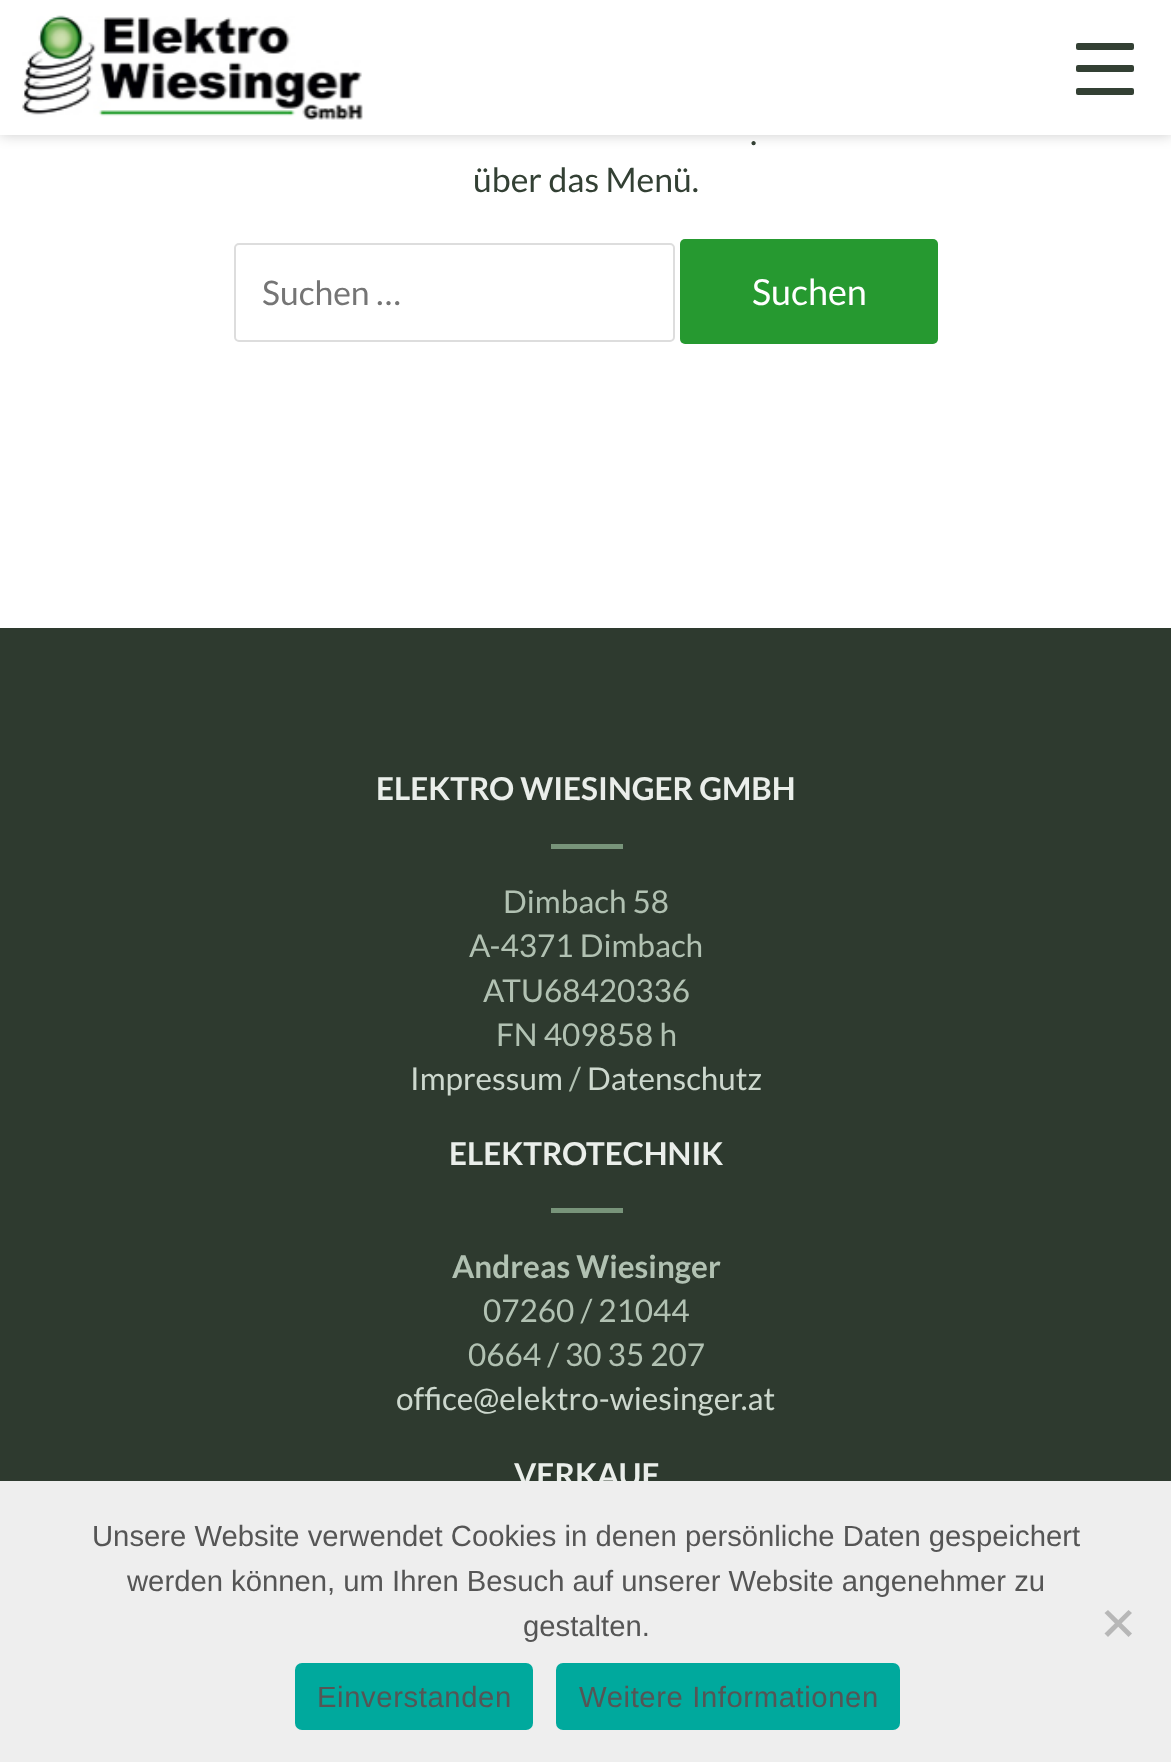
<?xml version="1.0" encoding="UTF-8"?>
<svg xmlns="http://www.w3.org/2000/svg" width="1171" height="1762">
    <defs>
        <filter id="blur1" x="-50%" y="-200%" width="200%" height="500%"><feGaussianBlur stdDeviation="7"/></filter>
    </defs>
    <rect width="100%" height="100%" fill="#FFFFFF"/>
    <rect x="0" y="0" width="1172" height="135" fill="#000000" fill-opacity="0.2" filter="url(#blur1)"/>
    <rect x="0" y="0" width="1171" height="135" fill="#FFFFFF"/>
    <image x="22" y="15" width="341" height="105" href="img_01.png"/>
    <rect x="1076" y="43" width="58" height="7" rx="2" fill="#334034"/>
    <rect x="1076" y="65" width="58" height="7" rx="2" fill="#334034"/>
    <rect x="1076" y="88" width="58" height="7" rx="2" fill="#334034"/>
    <text x="750" y="145" font-family="Lato" font-size="33.75" fill="#334034">.</text>
    <text x="473" y="192" font-family="Lato" font-size="33.75" fill="#334034">über das Menü.</text>
    <rect x="235" y="244" width="439" height="97" rx="4" fill="none" stroke="#DDDDDD" stroke-width="2"/>
    <text x="262" y="305" font-family="Lato" font-size="33.75" fill="#757575">Suchen …</text>
    <rect x="680" y="239" width="258" height="105" rx="5" fill="#269930"/>
    <text x="752" y="305" font-family="Lato" font-size="36" fill="#FFFFFF">Suchen</text>
    <rect x="0" y="628" width="1171" height="853" fill="#2E3A2F"/>
    <text x="376" y="800" font-family="Lato" font-size="31.5" font-weight="700" fill="#EAEEEA">ELEKTRO WIESINGER GMBH</text>
    <rect x="551" y="844" width="72" height="5" fill="#78947A"/>
    <text x="503" y="913" font-family="Lato" font-size="31.5" fill="#B1C1B2">Dimbach 58</text>
    <text x="469" y="957" font-family="Lato" font-size="31.5" fill="#B1C1B2">A-4371 Dimbach</text>
    <text x="483" y="1002" font-family="Lato" font-size="31.5" fill="#B1C1B2">ATU68420336</text>
    <text x="496" y="1046" font-family="Lato" font-size="31.5" fill="#B1C1B2">FN 409858 h</text>
    <text x="410" y="1090" font-family="Lato" font-size="31.5" fill="#CDD8CE">Impressum</text>
    <text x="569" y="1090" font-family="Lato" font-size="31.5" fill="#B1C1B2">/</text>
    <text x="587" y="1090" font-family="Lato" font-size="31.5" fill="#CDD8CE">Datenschutz</text>
    <text x="449" y="1165" font-family="Lato" font-size="31.5" font-weight="700" fill="#EAEEEA">ELEKTROTECHNIK</text>
    <rect x="551" y="1208" width="72" height="5" fill="#78947A"/>
    <text x="452" y="1278" font-family="Lato" font-size="31.5" font-weight="700" fill="#B1C1B2">Andreas Wiesinger</text>
    <text x="483" y="1322" font-family="Lato" font-size="31.5" fill="#B1C1B2">07260 / 21044</text>
    <text x="468" y="1366" font-family="Lato" font-size="31.5" fill="#B1C1B2">0664 / 30 35 207</text>
    <text x="396" y="1410" font-family="Lato" font-size="31.5" fill="#CDD8CE">office@elektro-wiesinger.at</text>
    <text x="514" y="1486" font-family="Lato" font-size="31.5" font-weight="700" fill="#EAEEEA">VERKAUF</text>
    <rect x="0" y="1481" width="1171" height="281" fill="#EEEEEE"/>
    <text x="92" y="1546" font-family="Liberation Sans" font-size="29.25" fill="#555555">Unsere Website verwendet Cookies in denen persönliche Daten gespeichert</text>
    <text x="127" y="1591" font-family="Liberation Sans" font-size="29.25" fill="#555555">werden können, um Ihren Besuch auf unserer Website angenehmer zu</text>
    <text x="523" y="1636" font-family="Liberation Sans" font-size="29.25" fill="#555555">gestalten.</text>
    <path d="M 1128.5 1610 L 1132 1613 L 1108 1637 L 1104.5 1633.5 Z" fill="#B7B7B7"/>
    <path d="M 1104.5 1613 L 1108 1610 L 1132 1633.5 L 1128.5 1637 Z" fill="#B7B7B7"/>
    <rect x="295" y="1663" width="238" height="67" rx="7" fill="#00A99D"/>
    <text x="317" y="1707" font-family="Liberation Sans" font-size="29.25" letter-spacing="0.6" fill="#555555">Einverstanden</text>
    <rect x="556" y="1663" width="344" height="67" rx="7" fill="#00A99D"/>
    <text x="579" y="1707" font-family="Liberation Sans" font-size="29.25" letter-spacing="0.6" fill="#555555">Weitere Informationen</text>
</svg>
